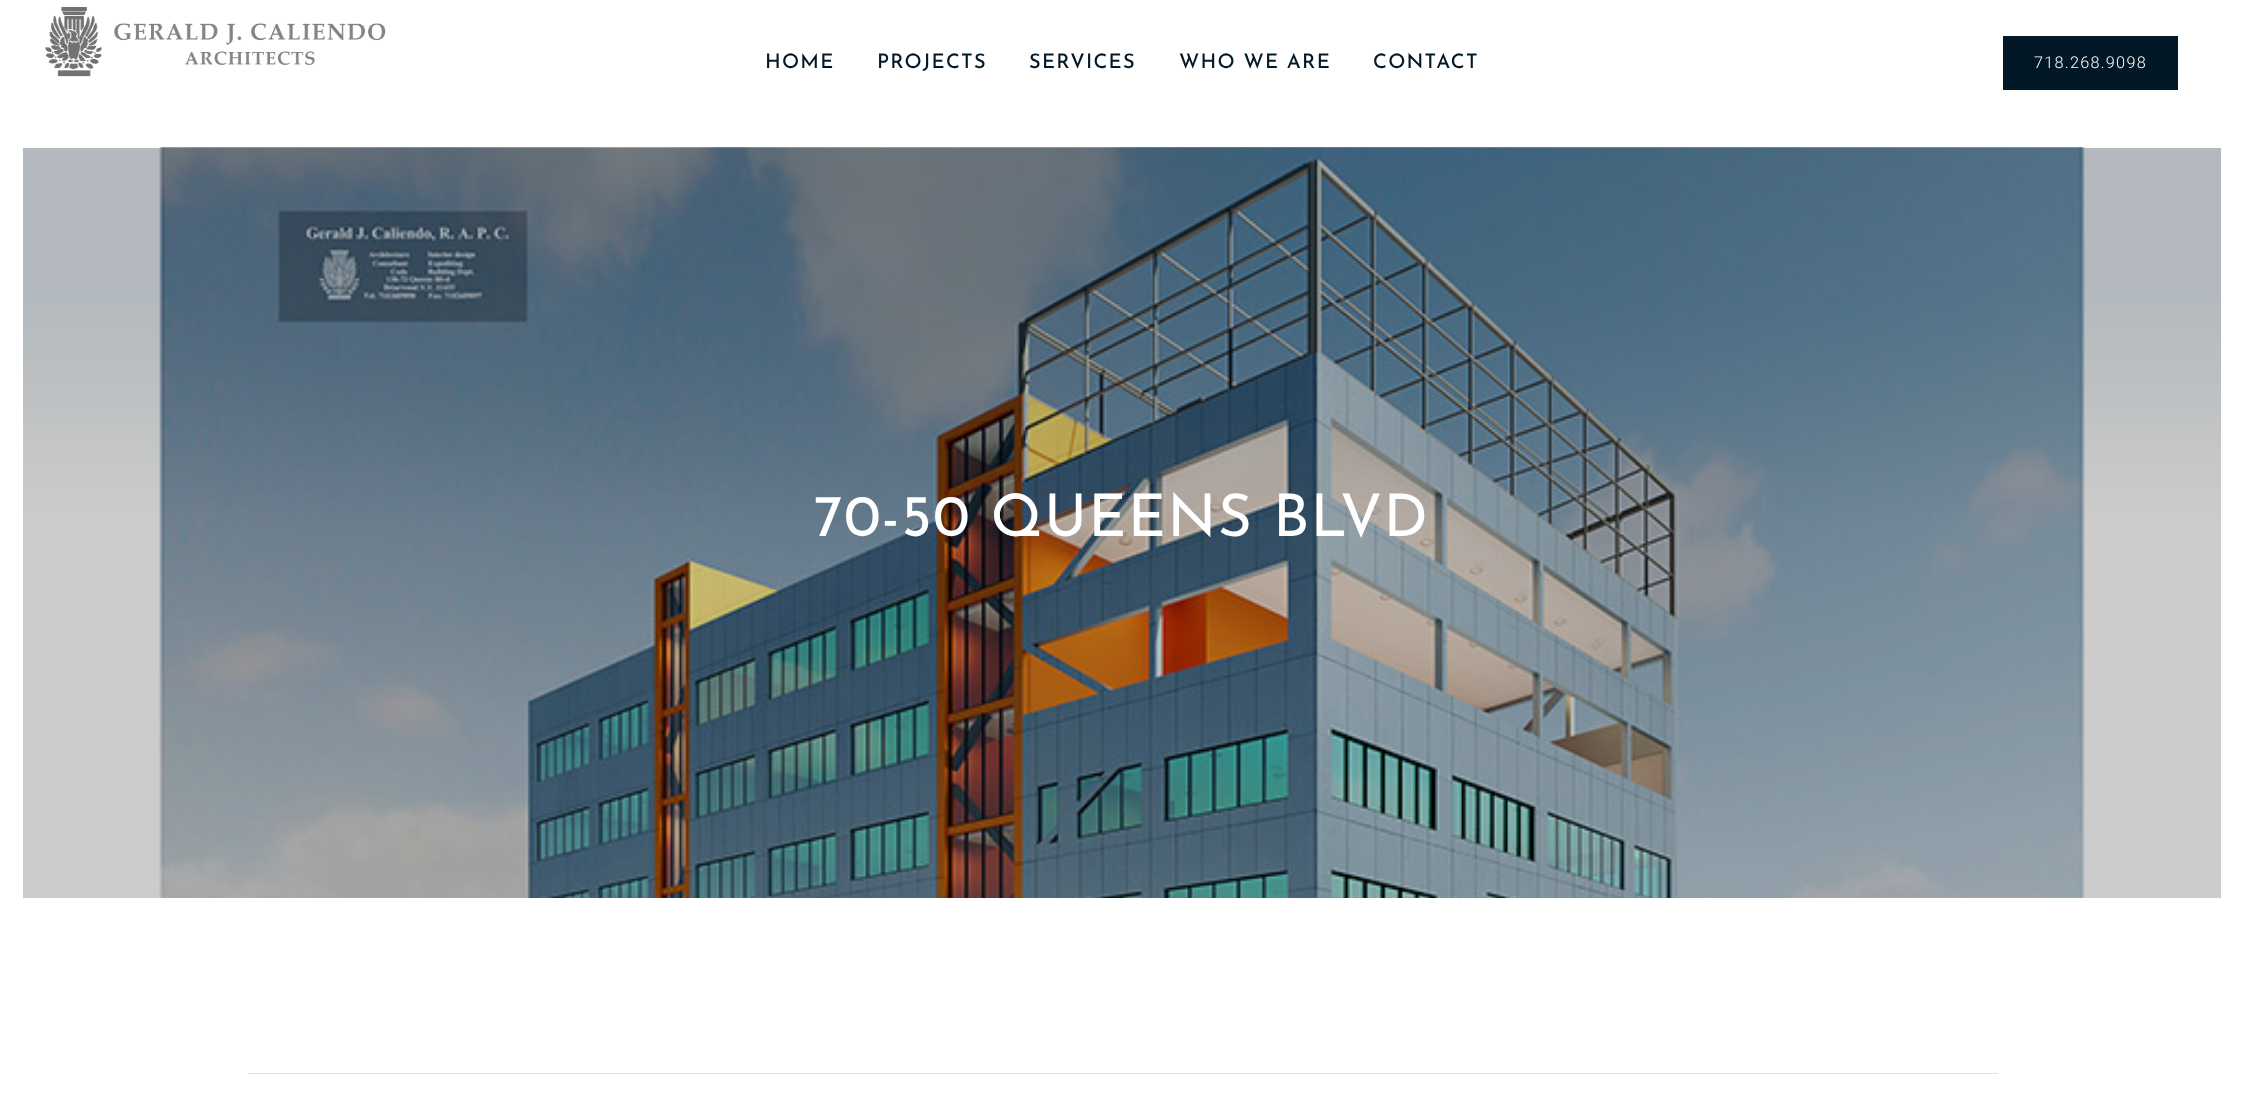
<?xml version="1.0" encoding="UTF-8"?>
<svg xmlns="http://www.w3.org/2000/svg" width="2243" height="1101">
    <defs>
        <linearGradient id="g1" gradientUnits="userSpaceOnUse" x1="1122" y1="147" x2="1122" y2="898"><stop offset="0.2" stop-color="#021827" stop-opacity="0.3"/><stop offset="0.5" stop-color="#000000" stop-opacity="0.2"/></linearGradient>
    </defs>
    <rect width="100%" height="100%" fill="#FFFFFF"/>
    <image x="45" y="7" width="341" height="70" href="img_01.png"/>
    <text x="765" y="68" font-family="Josefin Sans" font-size="20" font-weight="500" letter-spacing="1.25" fill="#021827">HOME</text>
    <text x="877" y="68" font-family="Josefin Sans" font-size="20" font-weight="500" letter-spacing="1.25" fill="#021827">PROJECTS</text>
    <text x="1029" y="68" font-family="Josefin Sans" font-size="20" font-weight="500" letter-spacing="1.25" fill="#021827">SERVICES</text>
    <text x="1179" y="68" font-family="Josefin Sans" font-size="20" font-weight="500" letter-spacing="1.25" fill="#021827">WHO WE ARE</text>
    <text x="1373" y="68" font-family="Josefin Sans" font-size="20" font-weight="500" letter-spacing="1.25" fill="#021827">CONTACT</text>
    <rect x="2003" y="36" width="175" height="54" fill="#021827"/>
    <text x="2034" y="68" font-family="Roboto" font-size="16.25" font-weight="300" letter-spacing="1.25" fill="#FFFFFF">718.268.9098</text>
    <image x="158" y="147" width="1928" height="751" href="img_02.png"/>
    <rect x="23" y="148" width="2198" height="750" fill="url(#g1)"/>
    <text x="814" y="536" font-family="Josefin Sans" font-size="58.75" letter-spacing="1.25" fill="#FFFFFF">70-50 QUEENS BLVD</text>
    <rect x="248" y="1073" width="1750" height="1" fill="#E0E0E0"/>
</svg>
